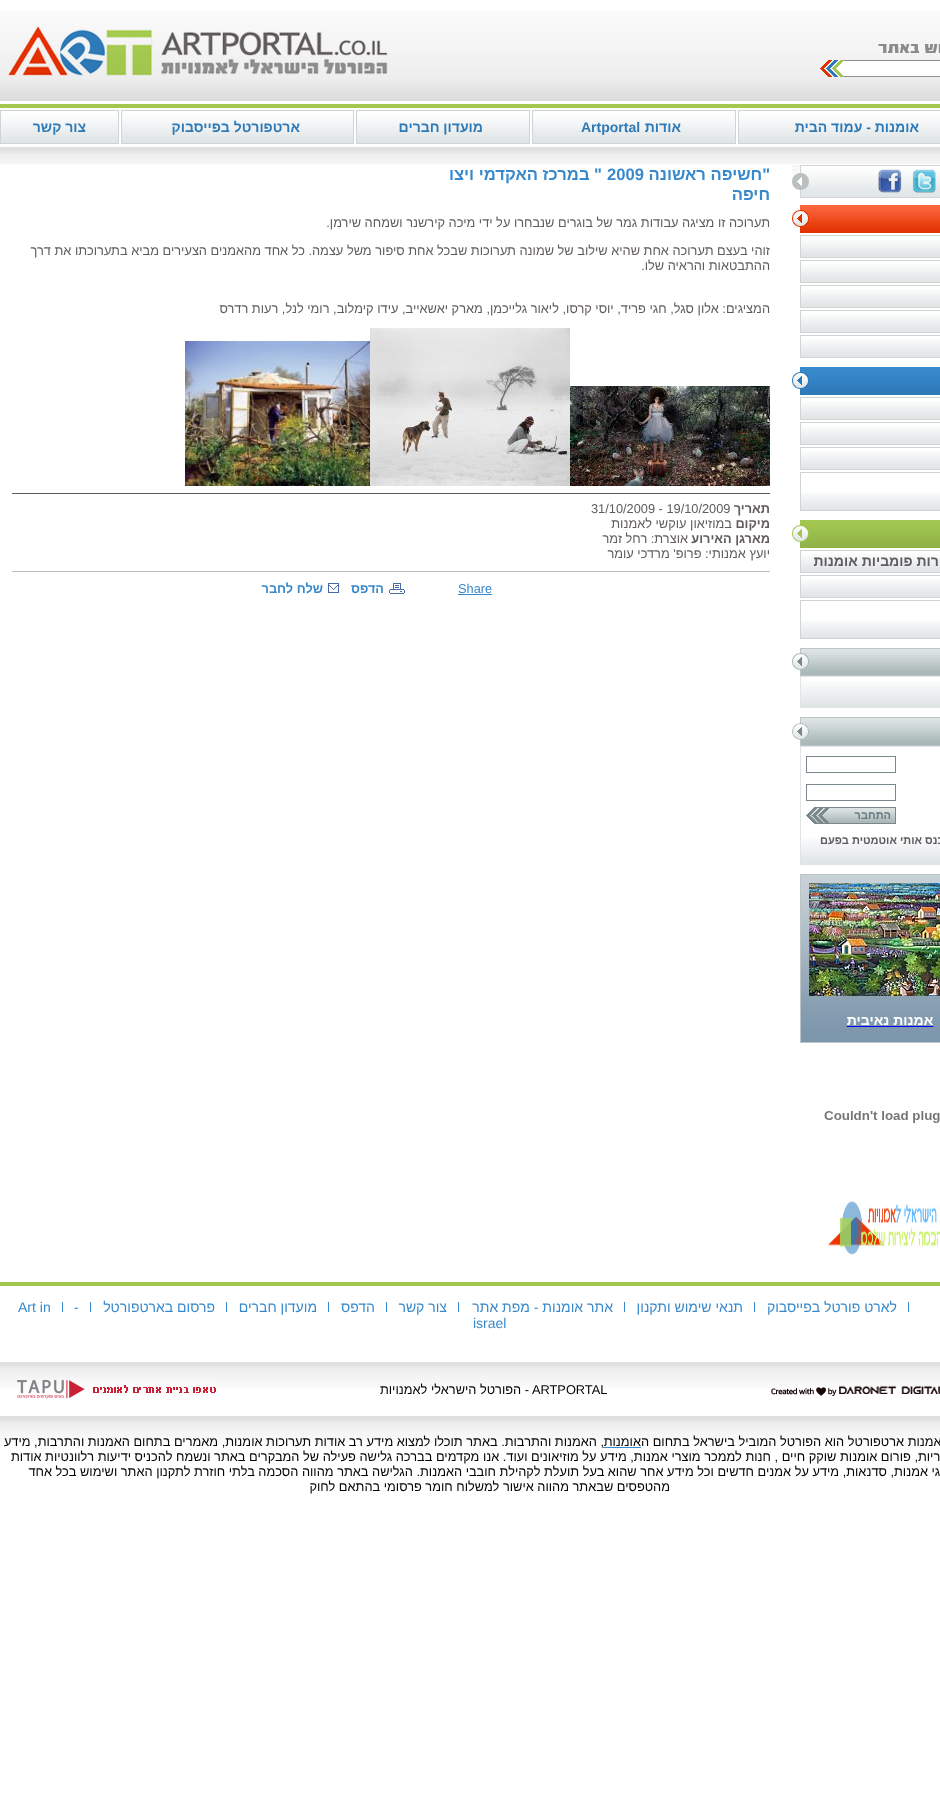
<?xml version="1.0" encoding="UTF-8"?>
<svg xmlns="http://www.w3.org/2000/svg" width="940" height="1809">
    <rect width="100%" height="100%" fill="#FFFFFF"/>
    <image x="0" y="11" width="940" height="97" href="img_01.png"/>
    <image x="878" y="44" width="62" height="9" href="img_02.png"/>
    <rect x="844" y="61" width="96" height="15" fill="#FFFFFF"/>
    <rect x="844" y="60" width="96" height="1" fill="#909090"/>
    <rect x="844" y="76" width="96" height="1" fill="#909090"/>
    <image x="820" y="60" width="24" height="17" href="img_03.png"/>
    <image x="8" y="24" width="380" height="52" href="img_04.png"/>
    <image x="0" y="147" width="940" height="17" href="img_05.png"/>
    <rect x="0" y="110" width="1" height="34" fill="#CFD4D5"/>
    <image x="735" y="110" width="205" height="34" href="img_06.png"/>
    <text x="919" y="132" font-family="Liberation Sans" font-size="14" font-weight="700" direction="rtl" fill="#2E7AB7">אומנות - עמוד הבית</text>
    <image x="529" y="110" width="206" height="34" href="img_07.png"/>
    <text x="681" y="132" font-family="Liberation Sans" font-size="14" font-weight="700" direction="rtl" fill="#2E7AB7">אודות</text>
    <text x="581" y="132" font-family="Liberation Sans" font-size="14" font-weight="700" fill="#2E7AB7">Artportal</text>
    <image x="353" y="110" width="176" height="34" href="img_08.png"/>
    <text x="483" y="132" font-family="Liberation Sans" font-size="14" font-weight="700" direction="rtl" fill="#2E7AB7">מועדון חברים</text>
    <image x="118" y="110" width="235" height="34" href="img_09.png"/>
    <text x="300" y="132" font-family="Liberation Sans" font-size="14" font-weight="700" direction="rtl" fill="#2E7AB7">ארטפורטל בפייסבוק</text>
    <image x="1" y="110" width="117" height="34" href="img_10.png"/>
    <text x="86" y="132" font-family="Liberation Sans" font-size="14" font-weight="700" direction="rtl" fill="#2E7AB7">צור קשר</text>
    <text x="770" y="180" font-family="Liberation Sans" font-size="16.6" font-weight="700" direction="rtl" fill="#3889CB">"חשיפה ראשונה</text>
    <text x="607" y="180" font-family="Liberation Sans" font-size="16.6" font-weight="700" fill="#3889CB">2009</text>
    <text x="602" y="180" font-family="Liberation Sans" font-size="16.6" font-weight="700" direction="rtl" fill="#3889CB">" במרכז האקדמי ויצו</text>
    <text x="770" y="200" font-family="Liberation Sans" font-size="16.6" font-weight="700" direction="rtl" fill="#3889CB">חיפה</text>
    <text x="770" y="227" font-family="Liberation Sans" font-size="12.8" direction="rtl" fill="#605B5F">תערוכה זו מציגה עבודות גמר של בוגרים שנבחרו על ידי מיכה קירשנר ושמחה שירמן.</text>
    <text font-family="Liberation Sans" font-size="12.8" direction="rtl" fill="#605B5F">
        <tspan x="770" y="255">זוהי בעצם תערוכה אחת שהיא שילוב של שמונה תערוכות שבכל אחת סיפור משל עצמה. כל אחד מהאמנים הצעירים מביא בתערוכתו את דרך</tspan>
        <tspan x="770" y="270">ההתבטאות והראיה שלו.</tspan>
    </text>
    <text x="770" y="313" font-family="Liberation Sans" font-size="12.8" direction="rtl" fill="#605B5F">המציגים: אלון סגל, חגי פריד, יוסי קרסו, ליאור גלייכמן, מארק יאשאייב, עידו קימלוב, רומי לנל, רעות רדרס</text>
    <image x="570" y="386" width="200" height="100" href="img_11.png"/>
    <image x="370" y="328" width="200" height="158" href="img_12.png"/>
    <image x="185" y="341" width="185" height="145" href="img_13.png"/>
    <rect x="12" y="493" width="758" height="1" fill="#5B5B5F"/>
    <text x="770" y="513" font-family="Liberation Sans" font-size="12.8" font-weight="700" direction="rtl" fill="#605B5F">תאריך</text>
    <text x="591" y="513" font-family="Liberation Sans" font-size="12.8" fill="#605B5F">31/10/2009 - 19/10/2009</text>
    <text x="770" y="528" font-family="Liberation Sans" font-size="12.8" font-weight="700" direction="rtl" fill="#605B5F">מיקום</text>
    <text x="732" y="528" font-family="Liberation Sans" font-size="12.8" direction="rtl" fill="#605B5F">במוזיאון עוקשי לאמנות</text>
    <text x="770" y="543" font-family="Liberation Sans" font-size="12.8" font-weight="700" direction="rtl" fill="#605B5F">מארגן האירוע</text>
    <text x="688" y="543" font-family="Liberation Sans" font-size="12.8" direction="rtl" fill="#605B5F">אוצרת: רחל זמר</text>
    <text x="770" y="558" font-family="Liberation Sans" font-size="12.8" direction="rtl" fill="#605B5F">יועץ אמנותי: פרופ' מרדכי עומר</text>
    <rect x="12" y="571" width="758" height="1" fill="#BCBCBC"/>
    <text x="458" y="593" font-family="Liberation Sans" font-size="12.8" fill="#3889CB">Share</text>
    <rect x="458" y="594" width="34" height="1" fill="#3889CB"/>
    <image x="389" y="583" width="16" height="11" href="img_14.png"/>
    <text x="384" y="593" font-family="Liberation Sans" font-size="12.8" font-weight="700" direction="rtl" fill="#3889CB">הדפס</text>
    <image x="328" y="583" width="11" height="10" href="img_15.png"/>
    <text x="323" y="593" font-family="Liberation Sans" font-size="12.8" font-weight="700" direction="rtl" fill="#3889CB">שלח לחבר</text>
    <image x="792" y="165" width="148" height="33" href="img_16.png"/>
    <image x="912" y="169" width="24" height="24" href="img_17.png"/>
    <image x="878" y="169" width="24" height="24" href="img_18.png"/>
    <image x="792" y="205" width="148" height="28" href="img_19.png"/>
    <image x="801" y="239" width="139" height="18" href="img_20.png"/>
    <rect x="800.5" y="235.5" width="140" height="22" fill="none" stroke="#CFD4D5"/>
    <image x="801" y="264" width="139" height="18" href="img_20.png"/>
    <rect x="800.5" y="260.5" width="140" height="22" fill="none" stroke="#CFD4D5"/>
    <image x="801" y="289" width="139" height="18" href="img_20.png"/>
    <rect x="800.5" y="285.5" width="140" height="22" fill="none" stroke="#CFD4D5"/>
    <image x="801" y="314" width="139" height="18" href="img_20.png"/>
    <rect x="800.5" y="310.5" width="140" height="22" fill="none" stroke="#CFD4D5"/>
    <image x="801" y="339" width="139" height="18" href="img_20.png"/>
    <rect x="800.5" y="335.5" width="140" height="22" fill="none" stroke="#CFD4D5"/>
    <image x="792" y="367" width="148" height="28" href="img_21.png"/>
    <image x="801" y="401" width="139" height="18" href="img_20.png"/>
    <rect x="800.5" y="397.5" width="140" height="22" fill="none" stroke="#CFD4D5"/>
    <image x="801" y="426" width="139" height="18" href="img_20.png"/>
    <rect x="800.5" y="422.5" width="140" height="22" fill="none" stroke="#CFD4D5"/>
    <image x="801" y="451" width="139" height="18" href="img_20.png"/>
    <rect x="800.5" y="447.5" width="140" height="22" fill="none" stroke="#CFD4D5"/>
    <image x="801" y="492" width="139" height="18" href="img_20.png"/>
    <rect x="800.5" y="472.5" width="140" height="38" fill="none" stroke="#CFD4D5"/>
    <image x="792" y="520" width="148" height="28" href="img_22.png"/>
    <image x="801" y="554" width="139" height="18" href="img_20.png"/>
    <rect x="800.5" y="550.5" width="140" height="22" fill="none" stroke="#CFD4D5"/>
    <text x="961" y="566" font-family="Liberation Sans" font-size="14" font-weight="700" direction="rtl" fill="#605B5F">מכירות פומביות אומנות</text>
    <image x="801" y="579" width="139" height="18" href="img_20.png"/>
    <rect x="800.5" y="575.5" width="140" height="22" fill="none" stroke="#CFD4D5"/>
    <image x="801" y="620" width="139" height="18" href="img_20.png"/>
    <rect x="800.5" y="600.5" width="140" height="38" fill="none" stroke="#CFD4D5"/>
    <image x="792" y="648" width="148" height="28" href="img_23.png"/>
    <image x="801" y="681" width="139" height="26" href="img_24.png"/>
    <rect x="800.5" y="676.5" width="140" height="31" fill="none" stroke="#DFE4E5"/>
    <image x="792" y="717" width="148" height="29" href="img_25.png"/>
    <image x="801" y="838" width="139" height="26" href="img_24.png"/>
    <rect x="800.5" y="746.5" width="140" height="118" fill="none" stroke="#DFE4E5"/>
    <rect x="806.5" y="756.5" width="89" height="16" fill="none" stroke="#7A878C"/>
    <rect x="806.5" y="784.5" width="89" height="16" fill="none" stroke="#7A878C"/>
    <image x="806" y="807" width="90" height="17" href="img_26.png"/>
    <text x="891" y="819" font-family="Liberation Sans" font-size="11" font-weight="700" direction="rtl" fill="#687980">התחבר</text>
    <text x="951" y="844" font-family="Liberation Sans" font-size="11" font-weight="700" direction="rtl" fill="#605B5F">הכנס אותי אוטמטית בפעם</text>
    <image x="800" y="874" width="140" height="169" href="img_27.png"/>
    <image x="824" y="1111" width="116" height="12" href="img_28.png"/>
    <image x="828" y="1201" width="112" height="54" href="img_29.png"/>
    <rect x="0" y="1282" width="940" height="4" fill="#A3C850"/>
    <text x="897" y="1312" font-family="Liberation Sans" font-size="14" direction="rtl" fill="#3889CB">לארט פורטל בפייסבוק</text>
    <rect x="908" y="1302" width="1" height="10" fill="#3889CB"/>
    <text x="743" y="1312" font-family="Liberation Sans" font-size="14" direction="rtl" fill="#3889CB">תנאי שימוש ותקנון</text>
    <rect x="754" y="1302" width="1" height="10" fill="#3889CB"/>
    <text x="613" y="1312" font-family="Liberation Sans" font-size="14" direction="rtl" fill="#3889CB">אתר אומנות - מפת אתר</text>
    <rect x="624" y="1302" width="1" height="10" fill="#3889CB"/>
    <text x="447" y="1312" font-family="Liberation Sans" font-size="14" direction="rtl" fill="#3889CB">צור קשר</text>
    <rect x="458" y="1302" width="1" height="10" fill="#3889CB"/>
    <text x="375" y="1312" font-family="Liberation Sans" font-size="14" direction="rtl" fill="#3889CB">הדפס</text>
    <rect x="386" y="1302" width="1" height="10" fill="#3889CB"/>
    <text x="317" y="1312" font-family="Liberation Sans" font-size="14" direction="rtl" fill="#3889CB">מועדון חברים</text>
    <rect x="328" y="1302" width="1" height="10" fill="#3889CB"/>
    <text x="215" y="1312" font-family="Liberation Sans" font-size="14" direction="rtl" fill="#3889CB">פרסום בארטפורטל</text>
    <rect x="226" y="1302" width="1" height="10" fill="#3889CB"/>
    <text x="74" y="1312" font-family="Liberation Sans" font-size="14" fill="#3889CB">-</text>
    <rect x="90" y="1302" width="1" height="10" fill="#3889CB"/>
    <text x="18" y="1312" font-family="Liberation Sans" font-size="14" fill="#3889CB">Art in</text>
    <rect x="62" y="1302" width="1" height="10" fill="#3889CB"/>
    <text x="473" y="1328" font-family="Liberation Sans" font-size="14" fill="#3889CB">israel</text>
    <image x="0" y="1362" width="940" height="26" href="img_30.png"/>
    <image x="771" y="1385" width="169" height="11" href="img_31.png"/>
    <text x="532" y="1394" font-family="Liberation Sans" font-size="12.8" fill="#020202">ARTPORTAL</text>
    <text x="529" y="1394" font-family="Liberation Sans" font-size="12.8" direction="rtl" fill="#020202">- הפורטל הישראלי לאמנויות</text>
    <image x="17" y="1380" width="199" height="19" href="img_32.png"/>
    <image x="0" y="1416" width="940" height="26" href="img_30.png"/>
    <text x="977" y="1446" font-family="Liberation Sans" font-size="12.8" direction="rtl" fill="#020202">אתר האמנות ארטפורטל הוא הפורטל המוביל בישראל בתחום ה</text>
    <text x="641" y="1446" font-family="Liberation Sans" font-size="12.8" direction="rtl" fill="#020202">אומנות</text>
    <rect x="603" y="1447" width="38" height="1" fill="#3889CB"/>
    <text x="604" y="1446" font-family="Liberation Sans" font-size="12.8" direction="rtl" fill="#020202">, האמנות והתרבות. באתר תוכלו למצוא מידע רב אודות תערוכות אומנות, מאמרים בתחום האמנות והתרבות, מידע</text>
    <text x="970" y="1461" font-family="Liberation Sans" font-size="12.8" direction="rtl" fill="#020202">על גלריות, פורום אומנות שוקק חיים , חנות לממכר מוצרי אמנות, מידע על מוזיאונים ועוד. אנו מקדמים בברכה גלישה פעילה של המבקרים באתר ונשמח להכניס ידיעות רלוונטיות אודות</text>
    <text x="952" y="1476" font-family="Liberation Sans" font-size="12.8" direction="rtl" fill="#020202">חוגי אמנות, סדנאות, מידע על אמנים חדשים וכל מידע אחר שהוא בעל תועלת לקהילת חובבי האמנות. הגלישה באתר מהווה הסכמה בלתי חוזרת לתקנון האתר ושימוש בכל אחד</text>
    <text x="670" y="1491" font-family="Liberation Sans" font-size="12.8" direction="rtl" fill="#020202">מהטפסים שבאתר מהווה אישור למשלוח חומר פרסומי בהתאם לחוק</text>
</svg>
